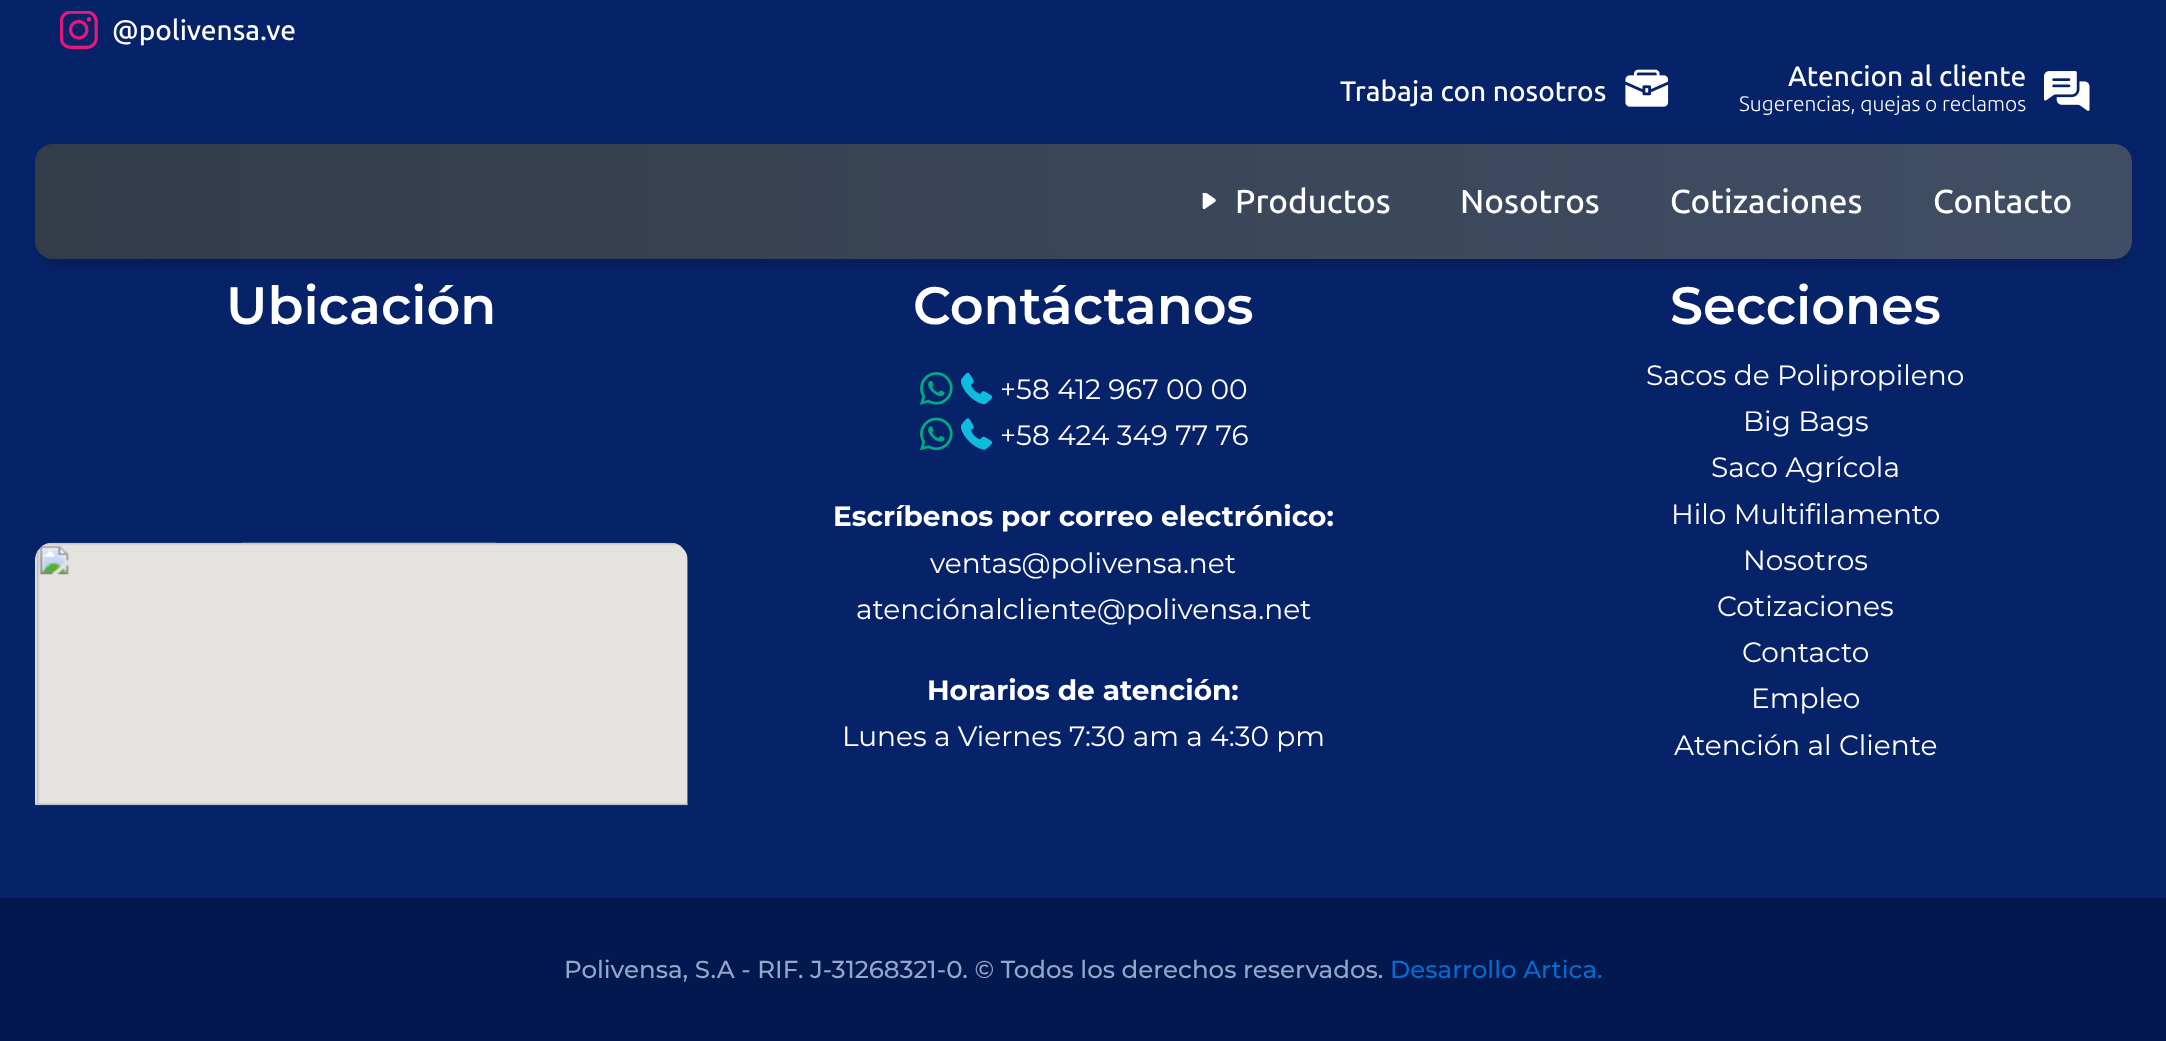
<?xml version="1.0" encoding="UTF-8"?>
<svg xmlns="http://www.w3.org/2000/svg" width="2166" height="1041">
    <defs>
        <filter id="blur1" x="-50%" y="-200%" width="200%" height="500%"><feGaussianBlur stdDeviation="9"/></filter>
        <linearGradient id="g1" gradientUnits="userSpaceOnUse" x1="35" y1="201" x2="2132" y2="201"><stop offset="0" stop-color="#343C4A"/><stop offset="1" stop-color="#404E65"/></linearGradient>
    </defs>
    <rect width="100%" height="100%" fill="#062269"/>
    <image x="60" y="11" width="38" height="38" href="img_01.png"/>
    <text x="112" y="40" font-family="Ubuntu" font-size="28" font-weight="500" fill="#FFFFFF">@polivensa.ve</text>
    <text x="1340" y="101" font-family="Ubuntu" font-size="28" font-weight="500" fill="#FFFFFF">Trabaja con nosotros</text>
    <image x="1625" y="69" width="44" height="38" href="img_02.png"/>
    <text x="1788" y="86" font-family="Ubuntu" font-size="28" font-weight="500" fill="#FFFFFF">Atencion al cliente</text>
    <text x="1739" y="111" font-family="Ubuntu" font-size="21" font-weight="300" fill="#FFFFFF">Sugerencias, quejas o reclamos</text>
    <image x="2044" y="71" width="46" height="40" href="img_03.png"/>
    <rect x="42" y="161" width="2083" height="102" rx="11" fill="#000000" fill-opacity="0.2" filter="url(#blur1)"/>
    <rect x="35" y="144" width="2097" height="115" rx="18" fill="url(#g1)"/>
    <image x="1202" y="193" width="14" height="17" href="img_04.png"/>
    <text x="1235" y="213" font-family="Ubuntu" font-size="33.25" font-weight="500" fill="#FFFFFF">Productos</text>
    <text x="1460" y="213" font-family="Ubuntu" font-size="33.25" font-weight="500" fill="#FFFFFF">Nosotros</text>
    <text x="1670" y="213" font-family="Ubuntu" font-size="33.25" font-weight="500" fill="#FFFFFF">Cotizaciones</text>
    <text x="1933" y="213" font-family="Ubuntu" font-size="33.25" font-weight="500" fill="#FFFFFF">Contacto</text>
    <text x="226" y="324" font-family="Montserrat" font-size="52.5" font-weight="600" fill="#FFFFFF">Ubicación</text>
    <image x="35" y="542" width="653" height="264" href="img_05.png"/>
    <text x="913" y="324" font-family="Montserrat" font-size="52.5" font-weight="600" fill="#FFFFFF">Contáctanos</text>
    <image x="920" y="372" width="33" height="33" href="img_06.png"/>
    <image x="961" y="372" width="31" height="33" href="img_07.png"/>
    <text x="1000" y="399" font-family="Montserrat" font-size="28" fill="#FFFFFF">+58 412 967 00 00</text>
    <image x="920" y="417" width="33" height="34" href="img_08.png"/>
    <image x="961" y="418" width="31" height="32" href="img_09.png"/>
    <text x="1000" y="445" font-family="Montserrat" font-size="28" fill="#FFFFFF">+58 424 349 77 76</text>
    <text x="833" y="526" font-family="Montserrat" font-size="28" font-weight="700" fill="#FFFFFF">Escríbenos por correo electrónico:</text>
    <text x="930" y="573" font-family="Montserrat" font-size="28" fill="#FFFFFF">ventas@polivensa.net</text>
    <text x="856" y="619" font-family="Montserrat" font-size="28" fill="#FFFFFF">atenciónalcliente@polivensa.net</text>
    <text x="927" y="700" font-family="Montserrat" font-size="28" font-weight="700" fill="#FFFFFF">Horarios de atención:</text>
    <text x="842" y="746" font-family="Montserrat" font-size="28" fill="#FFFFFF">Lunes a Viernes 7:30 am a 4:30 pm</text>
    <text x="1670" y="324" font-family="Montserrat" font-size="52.5" font-weight="600" fill="#FFFFFF">Secciones</text>
    <text x="1646" y="385" font-family="Montserrat" font-size="28" fill="#FFFFFF">Sacos de Polipropileno</text>
    <text x="1743" y="431" font-family="Montserrat" font-size="28" fill="#FFFFFF">Big Bags</text>
    <text x="1711" y="477" font-family="Montserrat" font-size="28" fill="#FFFFFF">Saco Agrícola</text>
    <text x="1671" y="524" font-family="Montserrat" font-size="28" fill="#FFFFFF">Hilo Multifilamento</text>
    <text x="1743" y="570" font-family="Montserrat" font-size="28" fill="#FFFFFF">Nosotros</text>
    <text x="1717" y="616" font-family="Montserrat" font-size="28" fill="#FFFFFF">Cotizaciones</text>
    <text x="1742" y="662" font-family="Montserrat" font-size="28" fill="#FFFFFF">Contacto</text>
    <text x="1751" y="708" font-family="Montserrat" font-size="28" fill="#FFFFFF">Empleo</text>
    <text x="1674" y="755" font-family="Montserrat" font-size="28" fill="#FFFFFF">Atención al Cliente</text>
    <rect x="0" y="898" width="2166" height="143" fill="#03184E"/>
    <text x="564" y="978" font-family="Montserrat" font-size="24.5" font-weight="500" fill="#8EA9CB">Polivensa, S.A - RIF. J-31268321-0. © Todos los derechos reservados.</text>
    <text x="1390" y="978" font-family="Montserrat" font-size="24.5" font-weight="500" fill="#046BD2">Desarrollo Artica.</text>
</svg>
